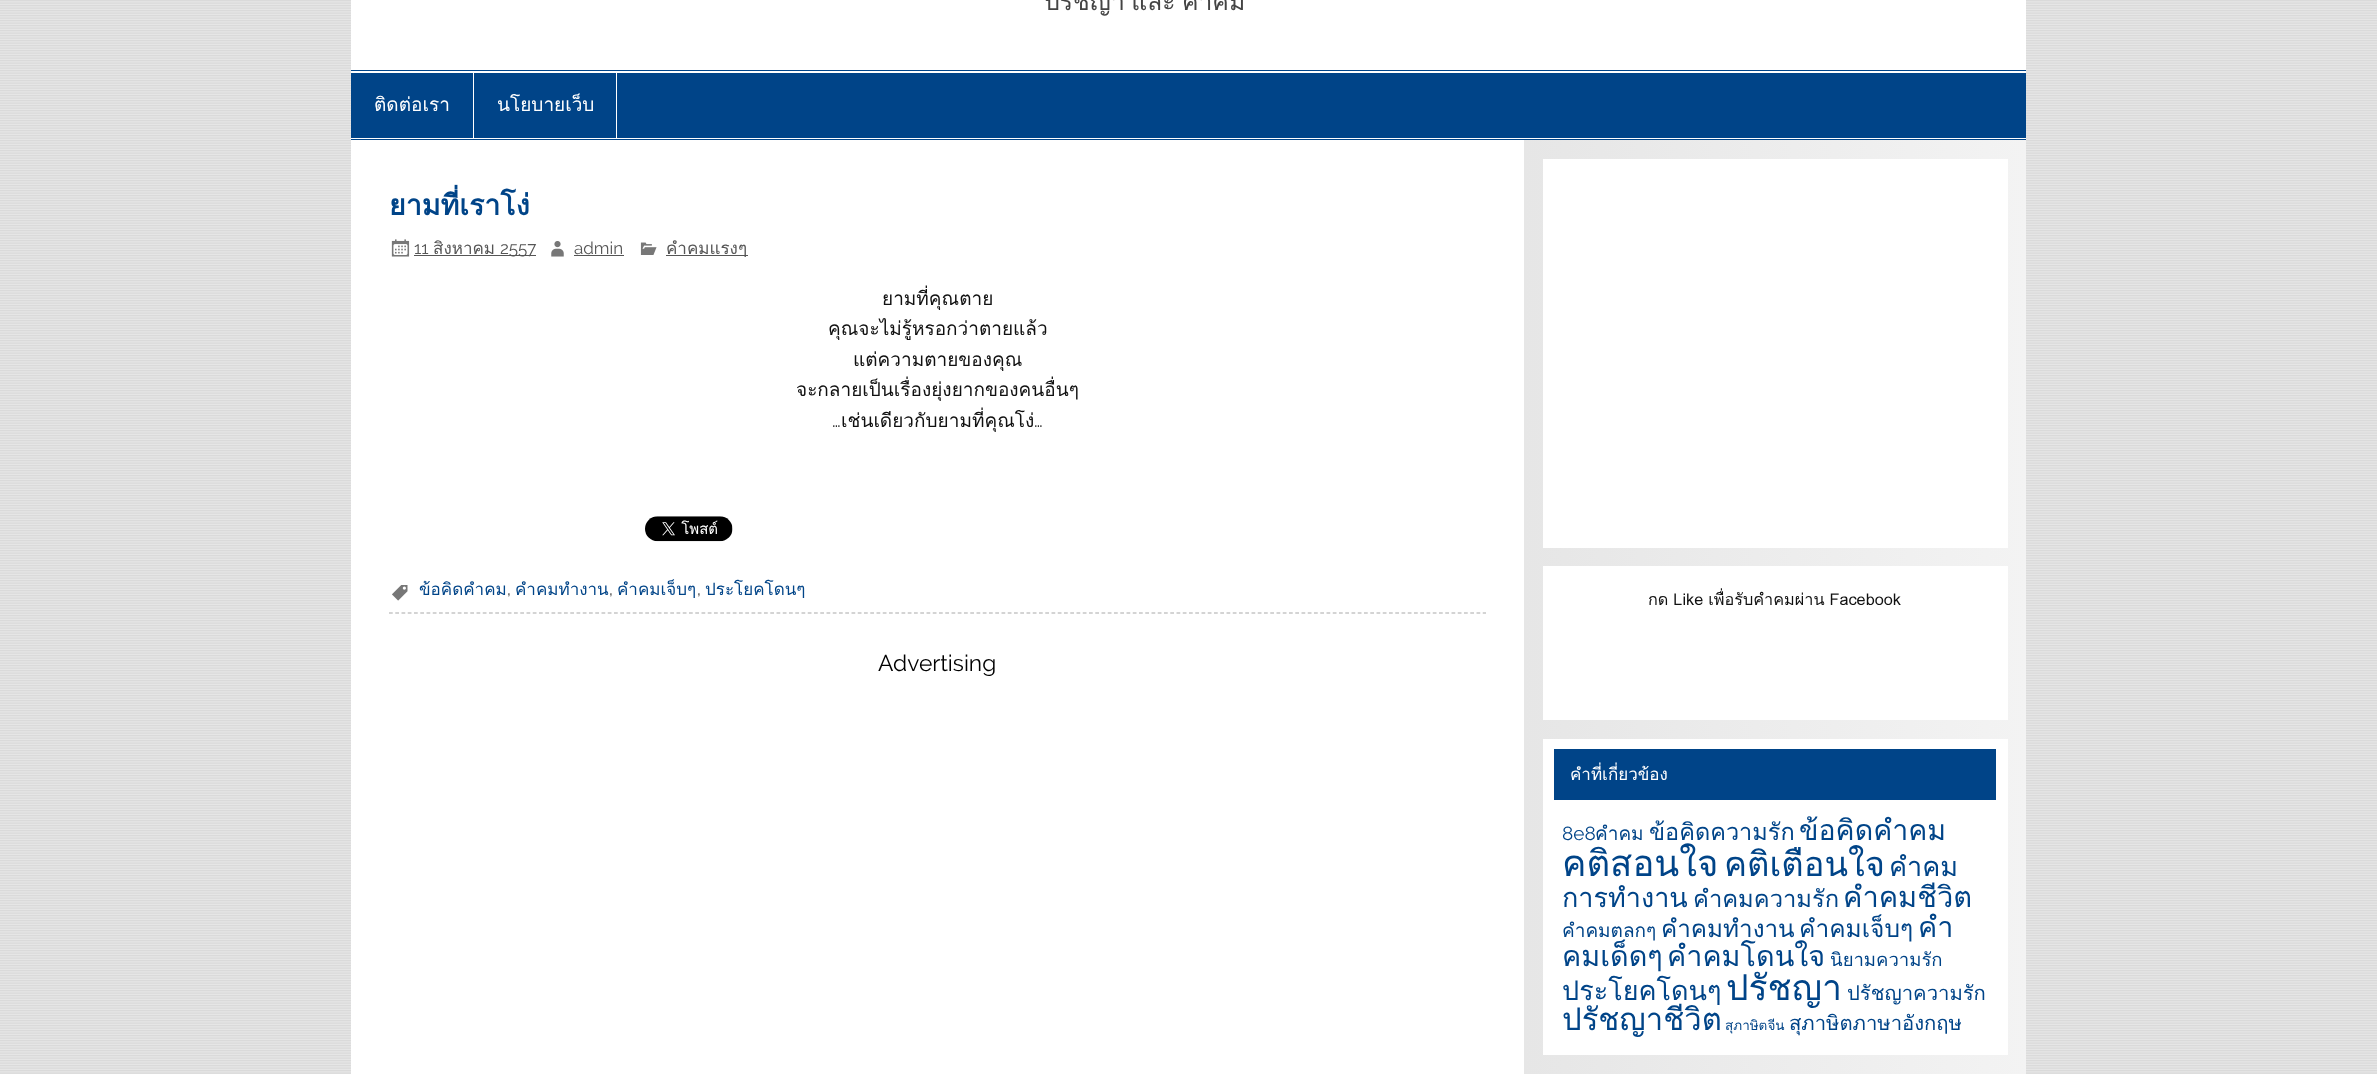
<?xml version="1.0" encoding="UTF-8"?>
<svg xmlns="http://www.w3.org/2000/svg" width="2377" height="1074">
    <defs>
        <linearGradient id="g1" gradientUnits="userSpaceOnUse" x1="1524" y1="617" x2="2026" y2="617"><stop offset="0" stop-color="#E6E6E6"/><stop offset="1" stop-color="#F3F3F3"/></linearGradient>
    </defs>
    <rect width="100%" height="100%" fill="#FFFFFF"/>
    <image x="0" y="0" width="2377" height="1074" href="img_01.png"/>
    <rect x="351" y="0" width="1675" height="1074" fill="#FFFFFF"/>
    <text x="1044" y="10" word-spacing="-2" font-family="Loma" font-size="24.75" fill="#444444">ปรัชญา และ คำคม</text>
    <rect x="351" y="70" width="1675" height="1" fill="#004488"/>
    <rect x="351" y="139" width="1675" height="1" fill="#004488"/>
    <rect x="351" y="73" width="1675" height="65" fill="#004488"/>
    <rect x="473" y="73" width="1" height="65" fill="#FFFFFF"/>
    <text x="374" y="111" font-family="Loma" font-size="19" fill="#FFFFFF">ติดต่อเรา</text>
    <rect x="616" y="73" width="1" height="65" fill="#FFFFFF"/>
    <text x="497" y="111" font-family="Loma" font-size="19" fill="#FFFFFF">นโยบายเว็บ</text>
    <path d="M 389 613 H 1486" fill="none" stroke="#AAAAAA" stroke-width="1.2" stroke-dasharray="3.75 2.5"/>
    <text x="389" y="215" font-family="Loma" font-size="28.5" font-weight="700" fill="#004488">ยามที่เราโง่</text>
    <image x="391" y="239" width="19" height="18" href="img_02.png"/>
    <text x="414" y="254" font-family="Raleway" font-size="17" fill="#555555">11</text>
    <text x="433" y="254" font-family="Loma" font-size="17" fill="#555555">สิงหาคม</text>
    <rect x="414" y="255" width="122" height="1" fill="#555555"/>
    <text x="500" y="254" font-family="Raleway" font-size="17" fill="#555555">2557</text>
    <image x="551" y="241" width="13" height="16" href="img_03.png"/>
    <text x="574" y="254" font-family="Raleway" font-size="17" fill="#555555">admin</text>
    <rect x="574" y="255" width="50" height="1" fill="#555555"/>
    <image x="640" y="242" width="17" height="13" href="img_04.png"/>
    <rect x="666" y="255" width="82" height="1" fill="#555555"/>
    <text x="666" y="254" font-family="Loma" font-size="17" fill="#555555">คําคมแรงๆ</text>
    <text x="882" y="305" font-family="Loma" font-size="19" fill="#111111">ยามที่คุณตาย</text>
    <text x="828" y="335" font-family="Loma" font-size="19" fill="#111111">คุณจะไม่รู้หรอกว่าตายแล้ว</text>
    <text x="853" y="366" font-family="Loma" font-size="19" fill="#111111">แต่ความตายของคุณ</text>
    <text x="796" y="396" font-family="Loma" font-size="19" fill="#111111">จะกลายเป็นเรื่องยุ่งยากของคนอื่นๆ</text>
    <text x="832" y="427" font-family="Raleway" font-size="19" fill="#111111">…</text>
    <text x="841" y="427" font-family="Loma" font-size="19" fill="#111111">เช่นเดียวกับยามที่คุณโง่</text>
    <text x="1034" y="427" font-family="Raleway" font-size="19" fill="#111111">…</text>
    <image x="645" y="516" width="88" height="26" href="img_05.png"/>
    <image x="392" y="585" width="16" height="16" href="img_06.png"/>
    <text x="419" y="595" font-family="Loma" font-size="17" fill="#004488">ข้อคิดคำคม</text>
    <text x="507" y="595" font-family="Raleway" font-size="17" fill="#333333">,</text>
    <text x="515" y="595" font-family="Loma" font-size="17" fill="#004488">คำคมทำงาน</text>
    <text x="609" y="595" font-family="Raleway" font-size="17" fill="#333333">,</text>
    <text x="617" y="595" font-family="Loma" font-size="17" fill="#004488">คำคมเจ็บๆ</text>
    <text x="697" y="595" font-family="Raleway" font-size="17" fill="#333333">,</text>
    <text x="705" y="595" font-family="Loma" font-size="17" fill="#004488">ประโยคโดนๆ</text>
    <text x="878" y="671" font-family="Raleway" font-size="22.75" fill="#000000">Advertising</text>
    <rect x="1524" y="140" width="502" height="934" fill="url(#g1)"/>
    <rect x="1543" y="159" width="465" height="389" fill="#FFFFFF"/>
    <rect x="1543" y="566" width="465" height="154" fill="#FFFFFF"/>
    <text x="1648" y="605" word-spacing="-0.5" font-family="Loma" font-size="16.25" fill="#111111">กด Like เพื่อรับคำคมผ่าน Facebook</text>
    <rect x="1543" y="739" width="465" height="316" fill="#FFFFFF"/>
    <rect x="1554" y="749" width="442" height="51" fill="#004488"/>
    <text x="1570" y="780" font-family="Loma" font-size="17" fill="#FFFFFF">คำที่เกี่ยวข้อง</text>
    <text x="1562" y="840" font-family="Raleway" font-size="19" fill="#004488">8e8</text>
    <text x="1595" y="840" font-family="Loma" font-size="19" fill="#004488">คำคม</text>
    <text x="1649" y="840" font-family="Loma" font-size="23.5" fill="#004488">ข้อคิดความรัก</text>
    <text x="1799" y="840" font-family="Loma" font-size="28.5" fill="#004488">ข้อคิดคำคม</text>
    <text x="1562" y="876" font-family="Loma" font-size="36.5" fill="#004488">คติสอนใจ</text>
    <text x="1724" y="876" font-family="Loma" font-size="34.5" fill="#004488">คติเตือนใจ</text>
    <text x="1889" y="876" font-family="Loma" font-size="27" fill="#004488">คำคม</text>
    <text x="1562" y="907" font-family="Loma" font-size="27" fill="#004488">การทำงาน</text>
    <text x="1693" y="907" font-family="Loma" font-size="23.75" fill="#004488">คำคมความรัก</text>
    <text x="1843" y="907" font-family="Loma" font-size="29" fill="#004488">คำคมชีวิต</text>
    <text x="1562" y="937" font-family="Loma" font-size="19" fill="#004488">คำคมตลกๆ</text>
    <text x="1661" y="937" font-family="Loma" font-size="24.25" fill="#004488">คำคมทำงาน</text>
    <text x="1799" y="937" font-family="Loma" font-size="24.5" fill="#004488">คำคมเจ็บๆ</text>
    <text x="1918" y="937" font-family="Loma" font-size="28.75" fill="#004488">คำ</text>
    <text x="1562" y="966" font-family="Loma" font-size="28.75" fill="#004488">คมเด็ดๆ</text>
    <text x="1667" y="966" font-family="Loma" font-size="28.75" fill="#004488">คำคมโดนใจ</text>
    <text x="1830" y="966" font-family="Loma" font-size="18.5" fill="#004488">นิยามความรัก</text>
    <text x="1562" y="1000" font-family="Loma" font-size="27" fill="#004488">ประโยคโดนๆ</text>
    <text x="1726" y="1000" font-family="Loma" font-size="35.5" fill="#004488">ปรัชญา</text>
    <text x="1847" y="1000" font-family="Loma" font-size="20.25" fill="#004488">ปรัชญาความรัก</text>
    <text x="1562" y="1030" font-family="Loma" font-size="31" fill="#004488">ปรัชญาชีวิต</text>
    <text x="1725" y="1030" font-family="Loma" font-size="13.5" fill="#004488">สุภาษิตจีน</text>
    <text x="1789" y="1030" font-family="Loma" font-size="20.25" fill="#004488">สุภาษิตภาษาอังกฤษ</text>
</svg>
